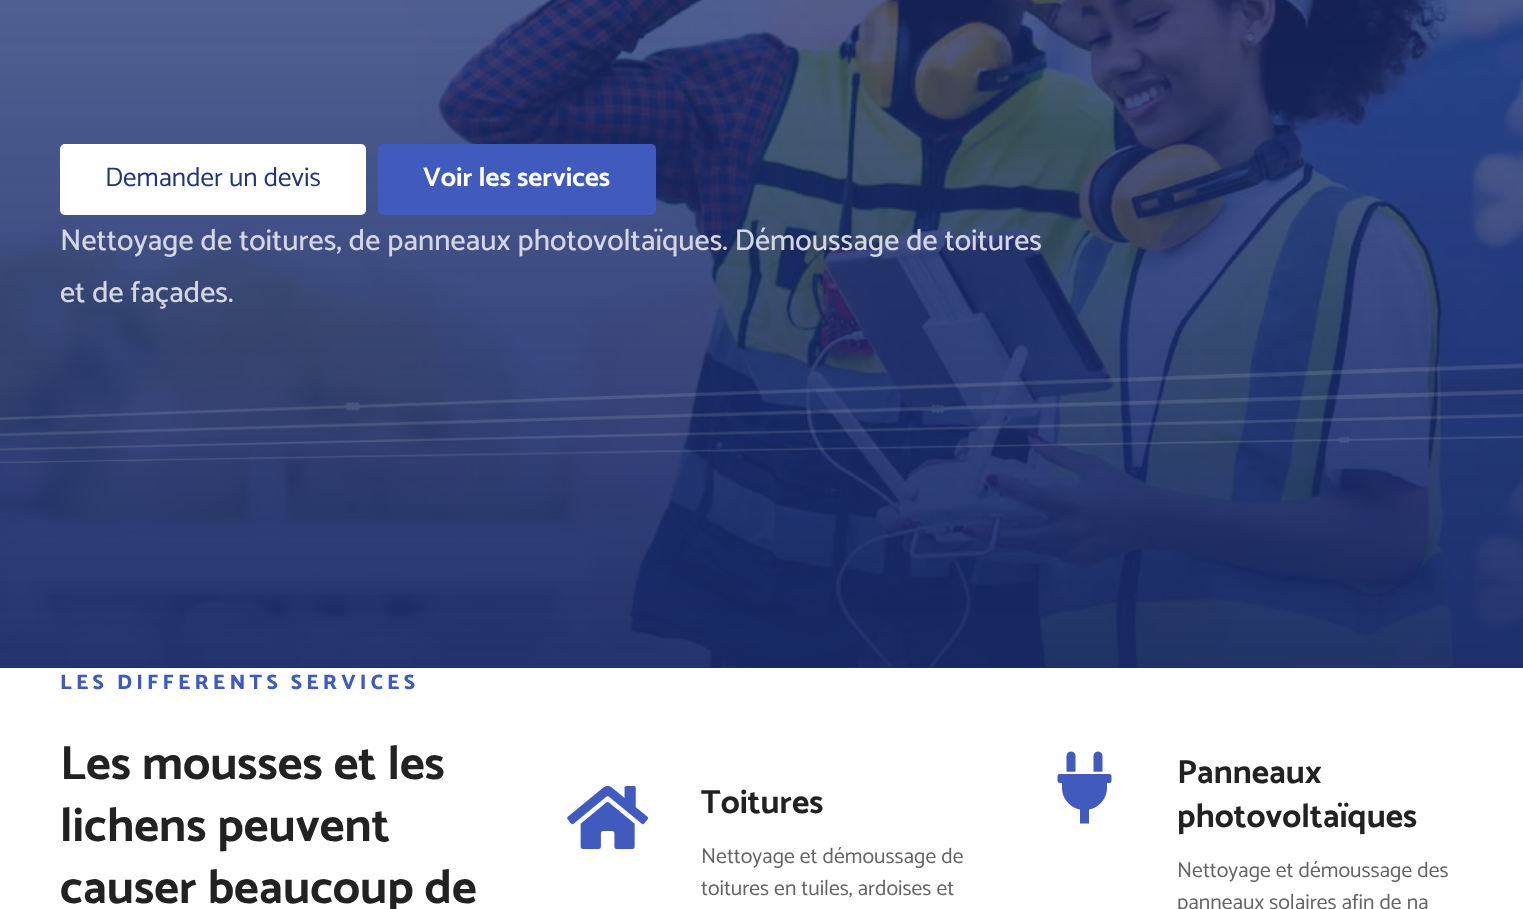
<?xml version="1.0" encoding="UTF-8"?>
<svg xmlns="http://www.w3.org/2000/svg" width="1523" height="909">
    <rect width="100%" height="100%" fill="#FFFFFF"/>
    <rect x="0" y="667" width="1523" height="1" fill="#1B2D6F"/>
    <image x="0" y="0" width="1523" height="667" href="img_01.png"/>
    <rect x="60" y="144" width="306" height="71" rx="5" fill="#FFFFFF"/>
    <text x="105" y="186" font-family="Catamaran" font-size="27" fill="#20337B">Demander un devis</text>
    <rect x="378" y="144" width="278" height="71" rx="5" fill="#405ABD"/>
    <text x="423" y="186" font-family="Catamaran" font-size="27" font-weight="700" fill="#FFFFFF">Voir les services</text>
    <text font-family="Catamaran" font-size="30" font-weight="500" fill="#D4D7E2">
        <tspan x="60" y="250">Nettoyage de toitures, de panneaux photovoltaïques. Démoussage de toitures</tspan>
        <tspan x="60" y="302">et de façades.</tspan>
    </text>
    <image x="0" y="363" width="1523" height="100" href="img_02.png"/>
    <text x="60" y="689" font-family="Catamaran" font-size="21" font-weight="800" letter-spacing="4.2" fill="#405ABD">LES DIFFERENTS SERVICES</text>
    <text font-family="Catamaran" font-size="48" font-weight="700" fill="#222222">
        <tspan x="60" y="779">Les mousses et les</tspan>
        <tspan x="60" y="841">lichens peuvent</tspan>
        <tspan x="60" y="903">causer beaucoup de</tspan>
    </text>
    <image x="567" y="786" width="82" height="63" href="img_03.png"/>
    <text x="701" y="813" font-family="Catamaran" font-size="33.5" font-weight="700" fill="#222222">Toitures</text>
    <text font-family="Catamaran" font-size="21.6" fill="#646464">
        <tspan x="701" y="863">Nettoyage et démoussage de</tspan>
        <tspan x="701" y="895">toitures en tuiles, ardoises et</tspan>
    </text>
    <image x="1057" y="751" width="55" height="73" href="img_04.png"/>
    <text font-family="Catamaran" font-size="33.5" font-weight="700" fill="#222222">
        <tspan x="1177" y="783">Panneaux</tspan>
        <tspan x="1177" y="827">photovoltaïques</tspan>
    </text>
    <text font-family="Catamaran" font-size="21.6" fill="#646464">
        <tspan x="1177" y="877">Nettoyage et démoussage des</tspan>
        <tspan x="1177" y="909">panneaux solaires afin de na</tspan>
    </text>
</svg>
